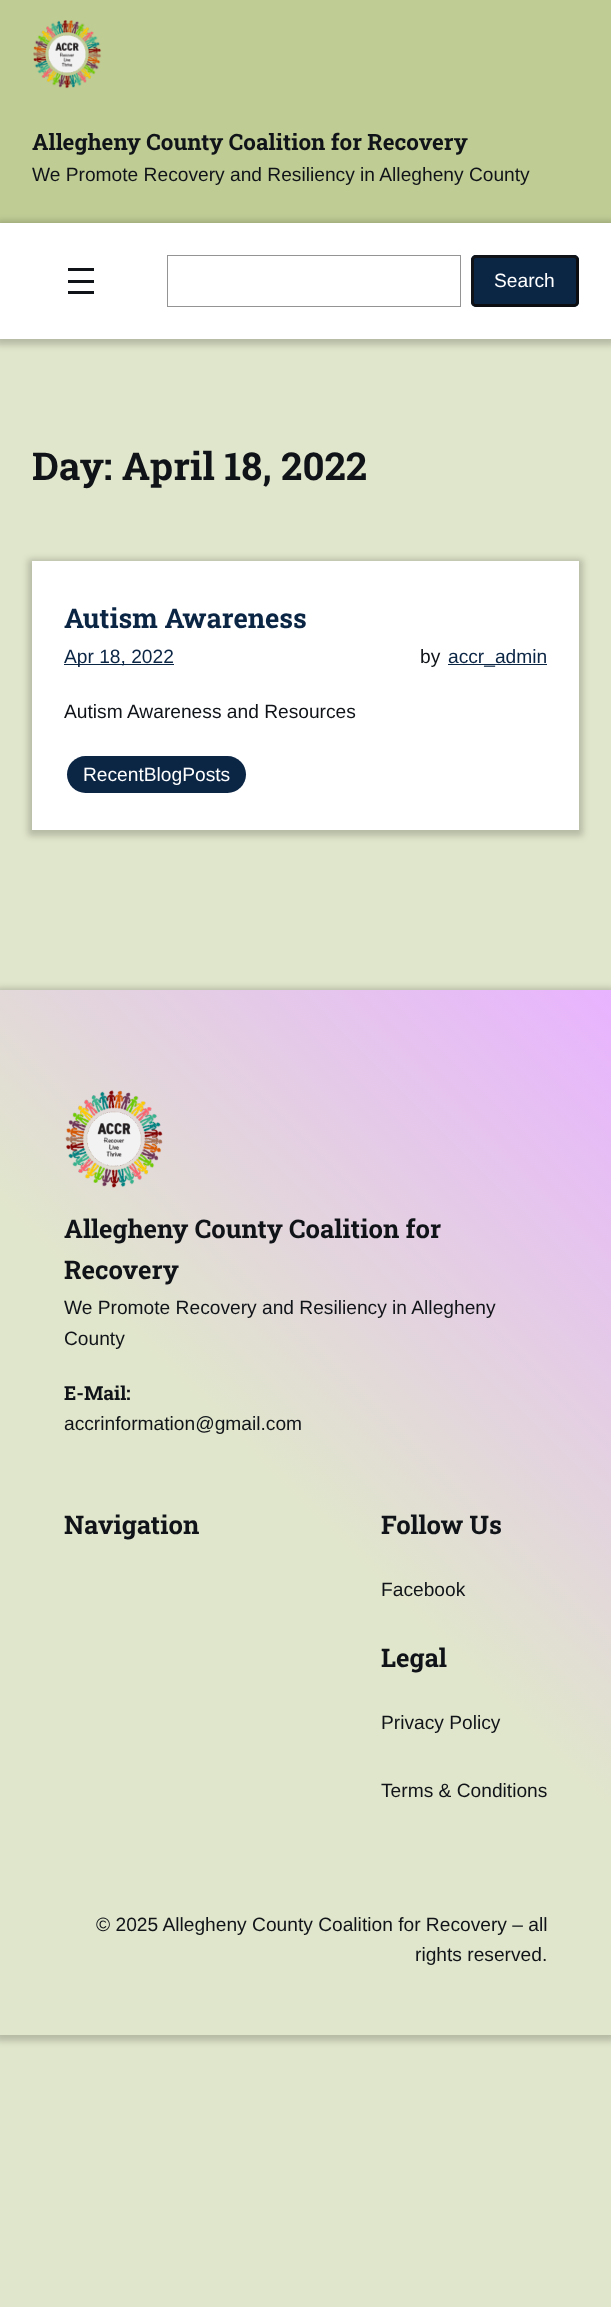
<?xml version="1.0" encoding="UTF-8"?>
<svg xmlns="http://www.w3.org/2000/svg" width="611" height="2307">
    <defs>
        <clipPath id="clip1"><path d="M 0 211 H 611 V 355 H 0 Z M 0 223 H 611 V 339 H 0 Z" clip-rule="evenodd"/></clipPath>
        <filter id="blur1" x="-50%" y="-200%" width="200%" height="500%"><feGaussianBlur stdDeviation="3"/></filter>
        <linearGradient id="g1" gradientUnits="userSpaceOnUse" x1="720" y1="1099" x2="-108" y2="1927"><stop offset="0" stop-color="#E8B3FF"/><stop offset="0.5" stop-color="#E0E6CB"/><stop offset="1" stop-color="#E0E6CB"/></linearGradient>
    </defs>
    <rect width="100%" height="100%" fill="#E0E6CB"/>
    <rect x="0" y="223" width="611" height="116" fill="#FFFFFF"/>
    <rect x="0" y="0" width="611" height="223" fill="#BFCC94"/>
    <image x="33" y="20" width="69" height="69" href="img_01.png"/>
    <text x="32" y="150" font-family="Roboto Slab" font-size="22.4" font-weight="700" fill="#101419">Allegheny County Coalition for Recovery</text>
    <text x="32" y="181" font-family="Arimo" font-size="19.2" fill="#101419">We Promote Recovery and Resiliency in Allegheny County</text>
    <g clip-path="url(#clip1)">
        <rect x="-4" y="221" width="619" height="124" fill="#000000" fill-opacity="0.19" filter="url(#blur1)"/>
    </g>
    <rect x="68" y="268" width="26" height="3" fill="#101419"/>
    <rect x="68" y="280" width="26" height="3" fill="#101419"/>
    <rect x="68" y="291" width="26" height="3" fill="#101419"/>
    <rect x="167.5" y="255.5" width="293" height="51" fill="none" stroke="#949494"/>
    <rect x="471" y="255" width="108" height="52" rx="5" fill="#0B2545"/>
    <path d="M 576.5 257.5 C 577 258 577.5 259 577.5 260 V 302 C 577.5 303 577 304 576.5 304.5 C 576 305 575 305.5 574 305.5 H 476 C 475 305.5 474 305 473.5 304.5" fill="none" stroke="#0B0D11" stroke-width="3"/>
    <path d="M 473.5 304.5 C 473 304 472.5 303 472.5 302 V 260 C 472.5 259 473 258 473.5 257.5 C 474 257 475 256.5 476 256.5 H 574 C 575 256.5 576 257 576.5 257.5" fill="none" stroke="#101419" stroke-width="3"/>
    <text x="494" y="287" font-family="Arimo" font-size="19.2" fill="#FFFFFF">Search</text>
    <text x="32" y="480" font-family="Roboto Slab" font-size="38.5" font-weight="700" fill="#101419">Day: April 18, 2022</text>
    <rect x="28" y="559" width="555" height="277" fill="#000000" fill-opacity="0.19" filter="url(#blur1)"/>
    <rect x="32" y="561" width="547" height="269" fill="#FFFFFF"/>
    <text x="64" y="628" font-family="Roboto Slab" font-size="27.25" font-weight="700" fill="#0B2545">Autism Awareness</text>
    <rect x="64" y="664" width="110" height="1" fill="#0B2545"/>
    <text x="64" y="663" font-family="Arimo" font-size="19.2" fill="#0B2545">Apr 18, 2022</text>
    <text x="420" y="663" font-family="Arimo" font-size="19.2" fill="#101419">by</text>
    <rect x="448" y="664" width="99" height="1" fill="#0B2545"/>
    <text x="448" y="663" font-family="Arimo" font-size="19.2" fill="#0B2545">accr_admin</text>
    <text x="64" y="718" font-family="Arimo" font-size="19.2" fill="#101419">Autism Awareness and Resources</text>
    <rect x="67" y="756" width="179" height="37" rx="18.5" fill="#0B2545"/>
    <text x="83" y="781" font-family="Arimo" font-size="19.2" fill="#FFFFFF">RecentBlogPosts</text>
    <rect x="-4" y="988" width="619" height="1053" fill="#000000" fill-opacity="0.19" filter="url(#blur1)"/>
    <rect x="0" y="990" width="611" height="1045" fill="url(#g1)"/>
    <image x="65" y="1090" width="98" height="98" href="img_02.png"/>
    <text font-family="Roboto Slab" font-size="25.6" font-weight="700" fill="#101419">
        <tspan x="64" y="1238">Allegheny County Coalition for</tspan>
        <tspan x="64" y="1279">Recovery</tspan>
    </text>
    <text font-family="Arimo" font-size="19.2" fill="#101419">
        <tspan x="64" y="1314">We Promote Recovery and Resiliency in Allegheny</tspan>
        <tspan x="64" y="1345">County</tspan>
    </text>
    <text x="64" y="1400" font-family="Roboto Slab" font-size="19.2" font-weight="700" fill="#101419">E-Mail:</text>
    <text x="64" y="1430" font-family="Arimo" font-size="19.2" fill="#101419">accrinformation@gmail.com</text>
    <text x="64" y="1534" font-family="Roboto Slab" font-size="25.6" font-weight="700" fill="#101419">Navigation</text>
    <text x="381" y="1534" font-family="Roboto Slab" font-size="25.6" font-weight="700" fill="#101419">Follow Us</text>
    <text x="381" y="1596" font-family="Arimo" font-size="19.2" fill="#101419">Facebook</text>
    <text x="381" y="1667" font-family="Roboto Slab" font-size="25.6" font-weight="700" fill="#101419">Legal</text>
    <text x="381" y="1729" font-family="Arimo" font-size="19.2" fill="#101419">Privacy Policy</text>
    <text x="381" y="1797" font-family="Arimo" font-size="19.2" fill="#101419">Terms &amp; Conditions</text>
    <text x="96" y="1931" font-family="Arimo" font-size="19.2" fill="#101419">© 2025 Allegheny County Coalition for Recovery – all</text>
    <text x="415" y="1961" font-family="Arimo" font-size="19.2" fill="#101419">rights reserved.</text>
</svg>
